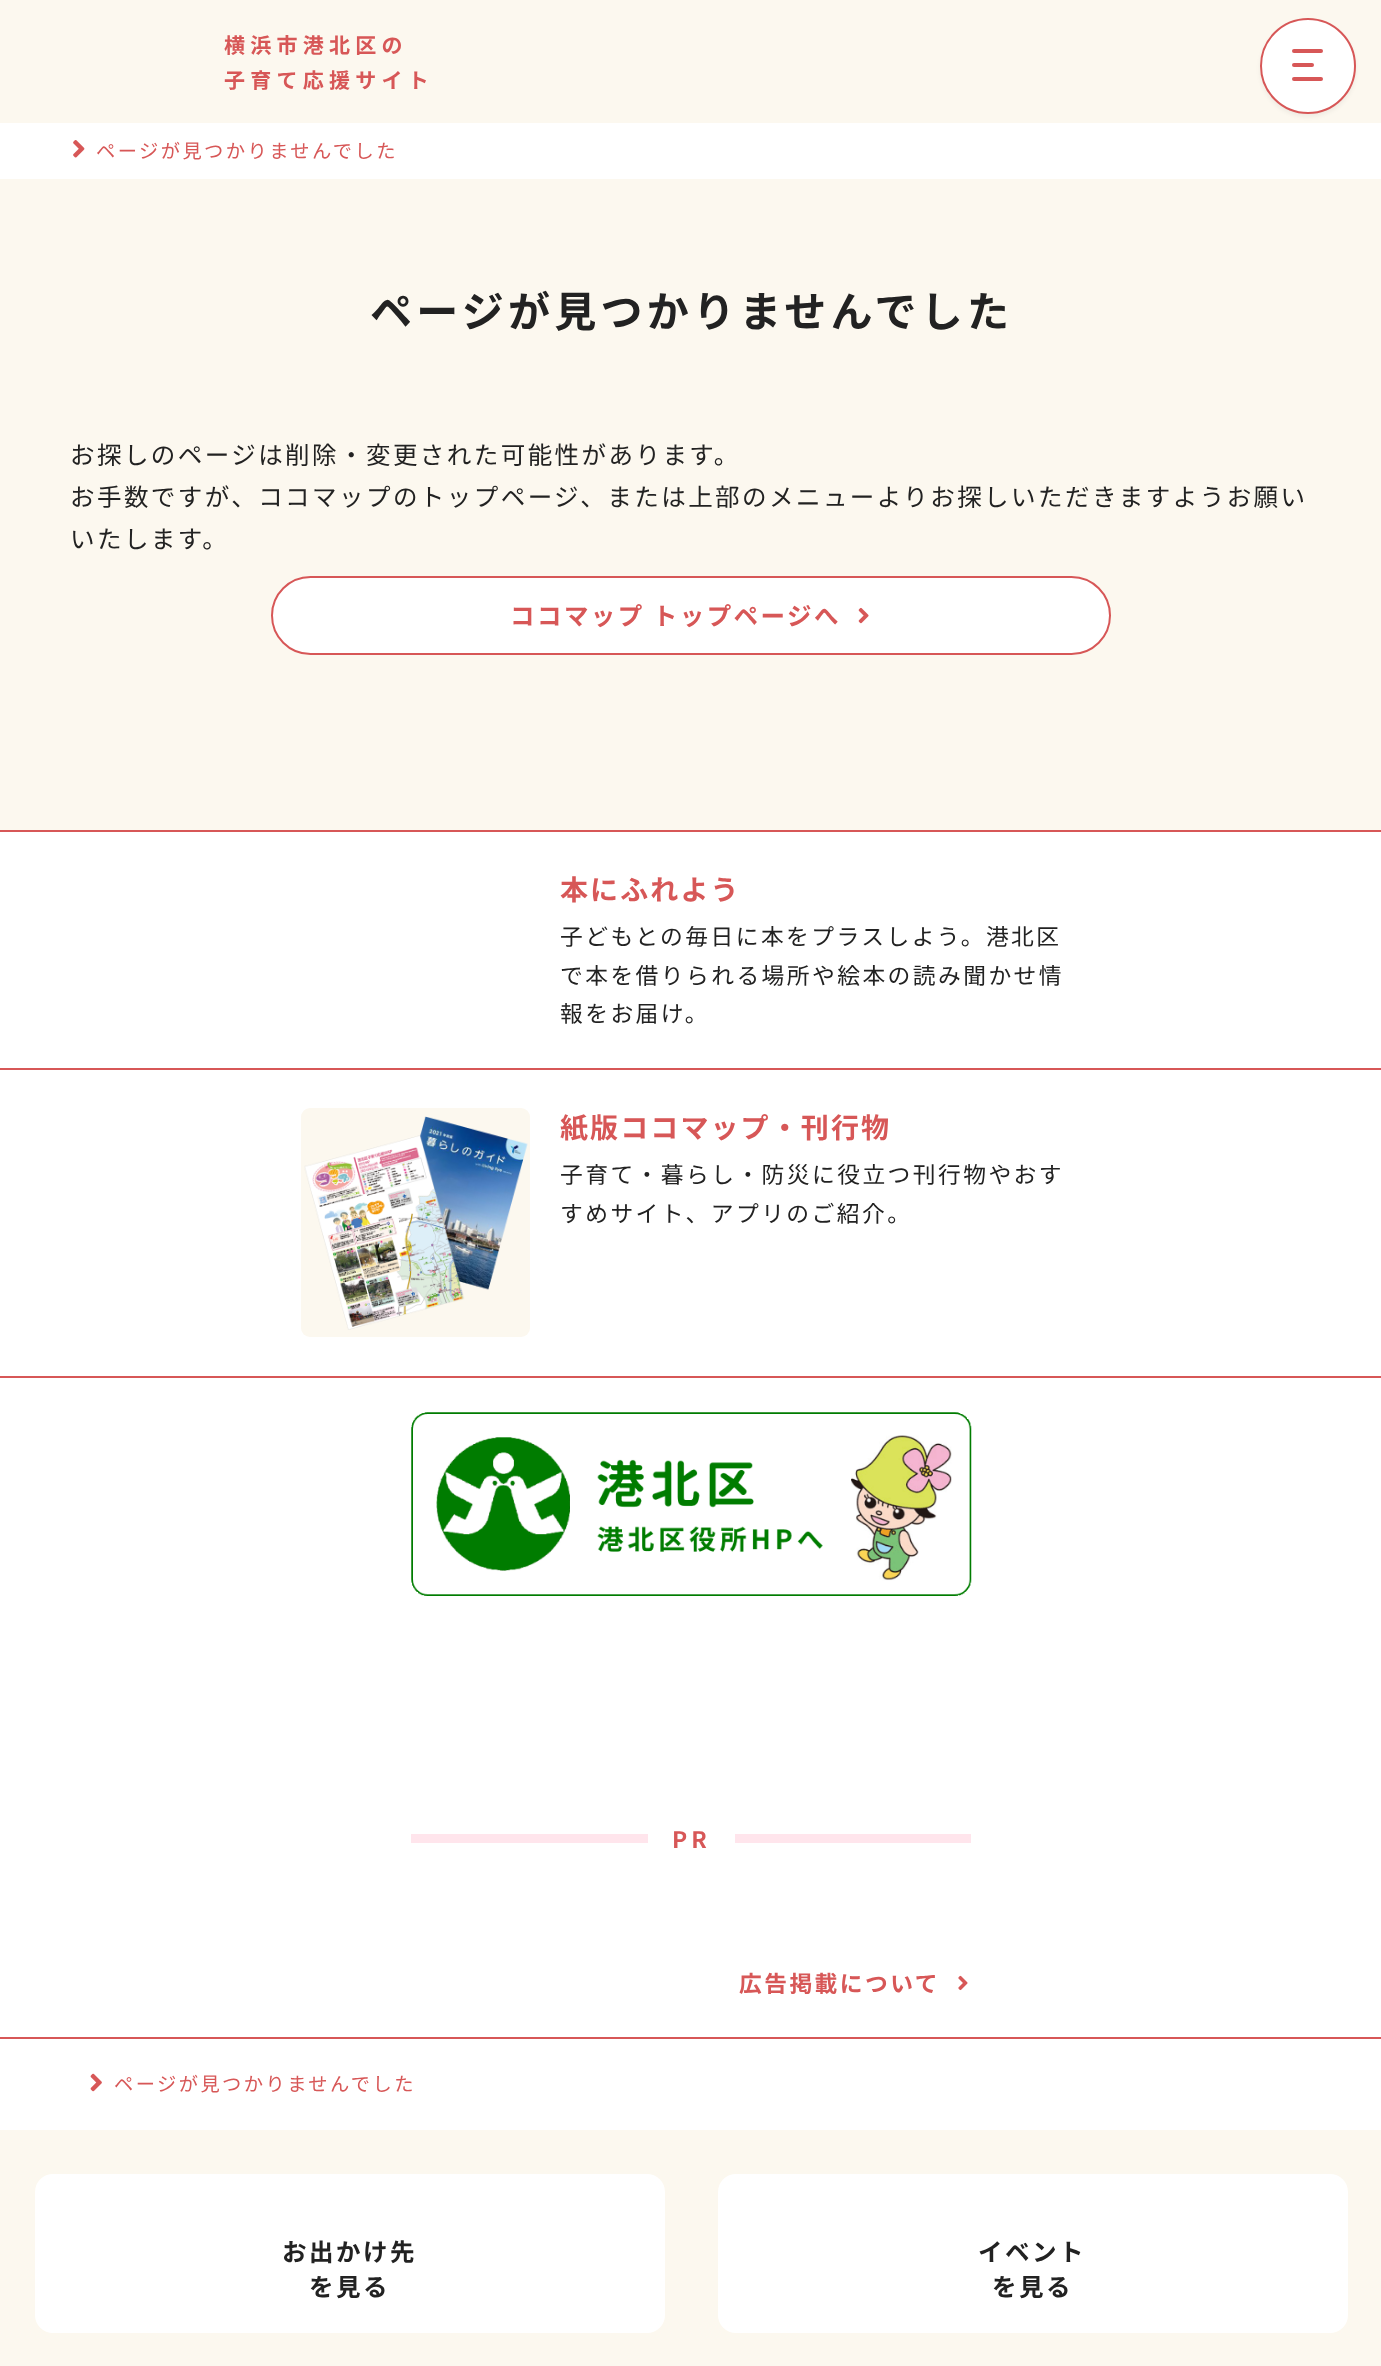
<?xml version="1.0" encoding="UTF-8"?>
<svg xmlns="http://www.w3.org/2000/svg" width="1381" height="2366">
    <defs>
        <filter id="blur1" x="-50%" y="-200%" width="200%" height="500%"><feGaussianBlur stdDeviation="2"/></filter>
    </defs>
    <rect width="100%" height="100%" fill="#FCF8EF"/>
    <text font-family="Noto Sans JP" font-size="21" font-weight="700" letter-spacing="5.25" fill="#D75757">
        <tspan x="224" y="53">横浜市港北区の</tspan>
        <tspan x="224" y="88">子育て応援サイト</tspan>
    </text>
    <rect x="0" y="123" width="1381" height="56" fill="#FFFFFF"/>
    <rect x="1260" y="21" width="96" height="96" rx="48" fill="#000000" fill-opacity="0.05" filter="url(#blur1)"/>
    <circle cx="1308" cy="66" r="47" fill="#FFFFFF" stroke="#D75757" stroke-width="2"/>
    <rect x="1292" y="49" width="31" height="4" rx="2" fill="#D75757"/>
    <rect x="1292" y="63" width="22" height="4" rx="2" fill="#D75757"/>
    <rect x="1292" y="77" width="31" height="4" rx="2" fill="#D75757"/>
    <image x="73" y="140" width="12" height="18" href="img_01.png"/>
    <text x="96" y="158" font-family="Noto Sans JP" font-size="19.25" letter-spacing="2.45" fill="#D75757">ページが見つかりませんでした</text>
    <text x="370" y="327" font-family="Noto Sans JP" font-size="42" font-weight="700" letter-spacing="4.25" fill="#222222">ページが見つかりませんでした</text>
    <text font-family="Noto Sans JP" font-size="24.5" letter-spacing="2.45" fill="#222222">
        <tspan x="70" y="464">お探しのページは削除・変更された可能性があります。</tspan>
        <tspan x="70" y="506">お手数ですが、ココマップのトップページ、または上部のメニューよりお探しいただきますようお願い</tspan>
        <tspan x="70" y="548">いたします。</tspan>
    </text>
    <rect x="272" y="577" width="838" height="77" rx="38.5" fill="#FFFFFF" stroke="#D75757" stroke-width="2"/>
    <text x="510" y="625" font-family="Noto Sans JP" font-size="24.5" font-weight="700" letter-spacing="2.45" fill="#D75757">ココマップ トップページへ</text>
    <image x="858" y="607" width="11" height="17" href="img_02.png"/>
    <rect x="0" y="832" width="1381" height="1205" fill="#FFFFFF"/>
    <rect x="0" y="830" width="1381" height="2" fill="#D75757"/>
    <rect x="0" y="1068" width="1381" height="2" fill="#D75757"/>
    <text x="560" y="900" font-family="Noto Sans JP" font-size="28" font-weight="700" letter-spacing="2.1" fill="#D75757">本にふれよう</text>
    <text font-family="Noto Sans JP" font-size="22.75" letter-spacing="2.45" fill="#222222">
        <tspan x="560" y="945">子どもとの毎日に本をプラスしよう。港北区</tspan>
        <tspan x="560" y="984">で本を借りられる場所や絵本の読み聞かせ情</tspan>
        <tspan x="560" y="1022">報をお届け。</tspan>
    </text>
    <rect x="0" y="1376" width="1381" height="2" fill="#D75757"/>
    <rect x="301" y="1108" width="229" height="229" rx="9" fill="#FCF8EF"/>
    <image x="304" y="1116" width="224" height="214" href="img_03.png"/>
    <text x="560" y="1138" font-family="Noto Sans JP" font-size="28" font-weight="700" letter-spacing="2.1" fill="#D75757">紙版ココマップ・刊行物</text>
    <text font-family="Noto Sans JP" font-size="22.75" letter-spacing="2.45" fill="#222222">
        <tspan x="560" y="1183">子育て・暮らし・防災に役立つ刊行物やおす</tspan>
        <tspan x="560" y="1222">すめサイト、アプリのご紹介。</tspan>
    </text>
    <image x="411" y="1412" width="561" height="184" href="img_04.png"/>
    <rect x="411" y="1834" width="237" height="9" fill="#FFE5EC"/>
    <text x="672" y="1848" font-family="Noto Sans JP" font-size="22.75" font-weight="700" letter-spacing="4" fill="#D75757">PR</text>
    <rect x="735" y="1834" width="236" height="9" fill="#FFE5EC"/>
    <text x="739" y="1992" font-family="Noto Sans JP" font-size="22.75" font-weight="700" letter-spacing="2.45" fill="#D75757">広告掲載について</text>
    <image x="958" y="1975" width="10" height="16" href="img_05.png"/>
    <rect x="0" y="2039" width="1381" height="91" fill="#FFFFFF"/>
    <rect x="0" y="2037" width="1381" height="2" fill="#D75757"/>
    <image x="90" y="2073" width="12" height="19" href="img_06.png"/>
    <text x="114" y="2091" font-family="Noto Sans JP" font-size="19.25" letter-spacing="2.45" fill="#D75757">ページが見つかりませんでした</text>
    <rect x="35" y="2174" width="630" height="159" rx="18" fill="#FFFFFF"/>
    <text x="282" y="2261" font-family="Noto Sans JP" font-size="24.5" font-weight="700" letter-spacing="2.5" fill="#222222">お出かけ先</text>
    <text x="309" y="2296" font-family="Noto Sans JP" font-size="24.5" font-weight="700" letter-spacing="2.5" fill="#222222">を見る</text>
    <rect x="718" y="2174" width="630" height="159" rx="18" fill="#FFFFFF"/>
    <text x="978" y="2261" font-family="Noto Sans JP" font-size="24.5" font-weight="700" letter-spacing="2.5" fill="#222222">イベント</text>
    <text x="992" y="2296" font-family="Noto Sans JP" font-size="24.5" font-weight="700" letter-spacing="2.5" fill="#222222">を見る</text>
</svg>
